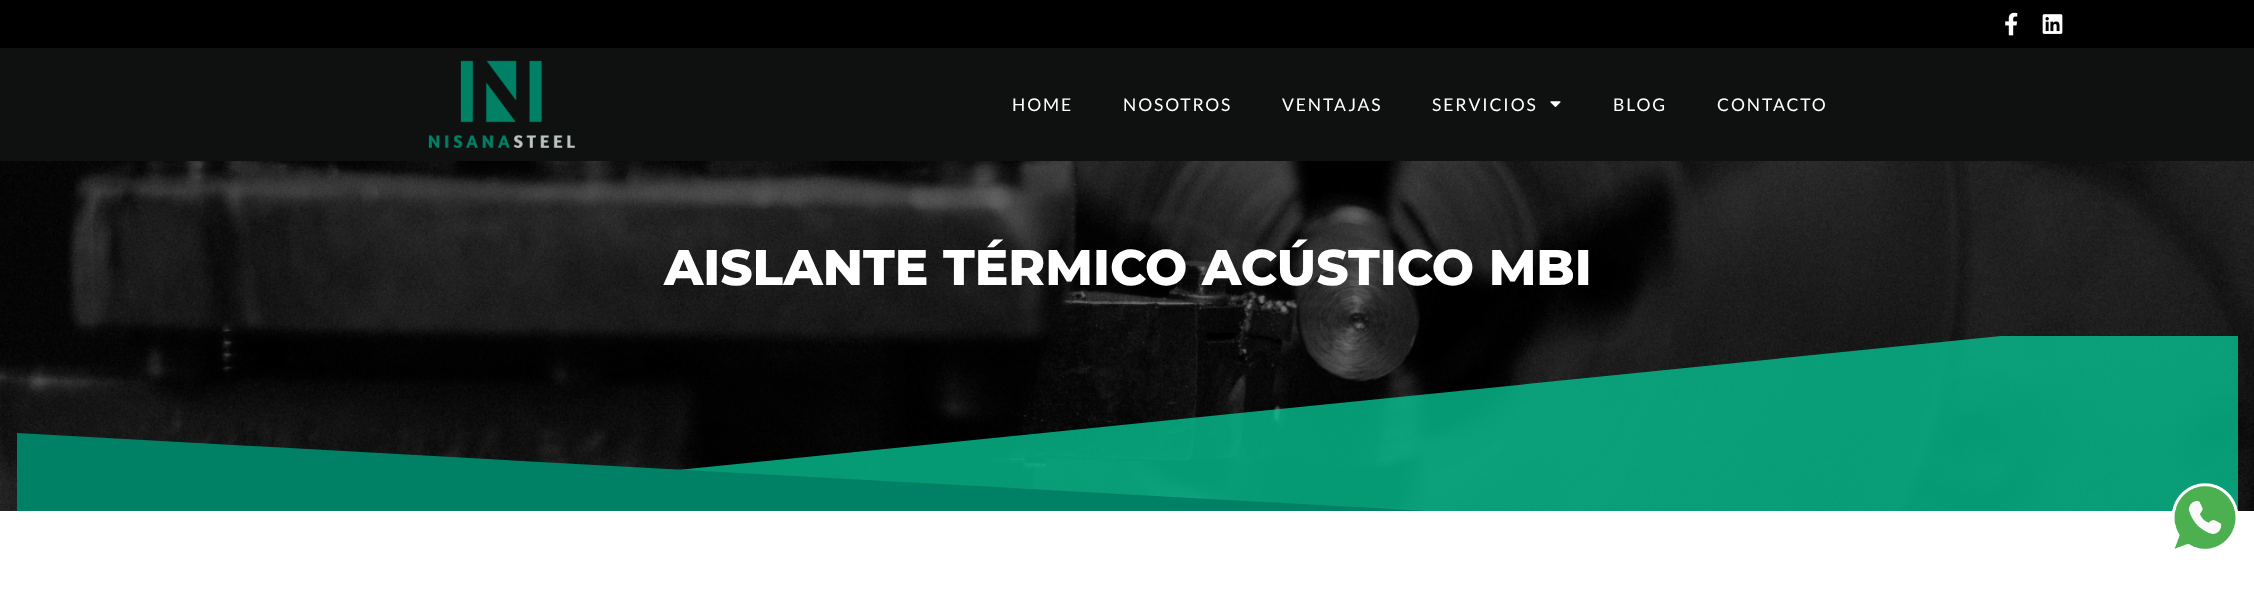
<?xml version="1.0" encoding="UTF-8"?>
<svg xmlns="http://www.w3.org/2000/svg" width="2254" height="592">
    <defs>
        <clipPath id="clip1"><rect x="0" y="336" width="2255" height="175"/></clipPath>
    </defs>
    <rect width="100%" height="100%" fill="#FFFFFF"/>
    <rect x="0" y="48" width="2254" height="113" fill="#0F1110"/>
    <rect x="0" y="0" width="2254" height="48" fill="#000000"/>
    <image x="2005" y="12" width="13" height="24" href="img_01.png"/>
    <image x="2042" y="14" width="21" height="20" href="img_02.png"/>
    <image x="428" y="60" width="147" height="88" href="img_03.png"/>
    <text x="1012" y="111" font-family="Lato" font-size="17.5" letter-spacing="1.9" fill="#FFFFFF">HOME</text>
    <text x="1123" y="111" font-family="Lato" font-size="17.5" letter-spacing="1.9" fill="#FFFFFF">NOSOTROS</text>
    <text x="1282" y="111" font-family="Lato" font-size="17.5" letter-spacing="1.9" fill="#FFFFFF">VENTAJAS</text>
    <text x="1432" y="111" font-family="Lato" font-size="17.5" letter-spacing="1.9" fill="#FFFFFF">SERVICIOS</text>
    <image x="1550" y="101" width="11" height="6" href="img_04.png"/>
    <text x="1613" y="111" font-family="Lato" font-size="17.5" letter-spacing="1.9" fill="#FFFFFF">BLOG</text>
    <text x="1717" y="111" font-family="Lato" font-size="17.5" letter-spacing="1.9" fill="#FFFFFF">CONTACTO</text>
    <image x="0" y="161" width="2254" height="350" href="img_05.png"/>
    <text x="664" y="285" font-family="Montserrat" font-size="50" font-weight="800" fill="#FFFFFF">AISLANTE TÉRMICO ACÚSTICO MBI</text>
    <g clip-path="url(#clip1)">
        <path d="M 2054 537 H 2238 V 312 L 17 537 Z" fill="#08C191" fill-opacity="0.8"/>
        <path d="M 1898 537 L 17 433 V 537 Z" fill="#008065"/>
    </g>
    <image x="2172" y="483" width="66" height="66" href="img_06.png"/>
</svg>
